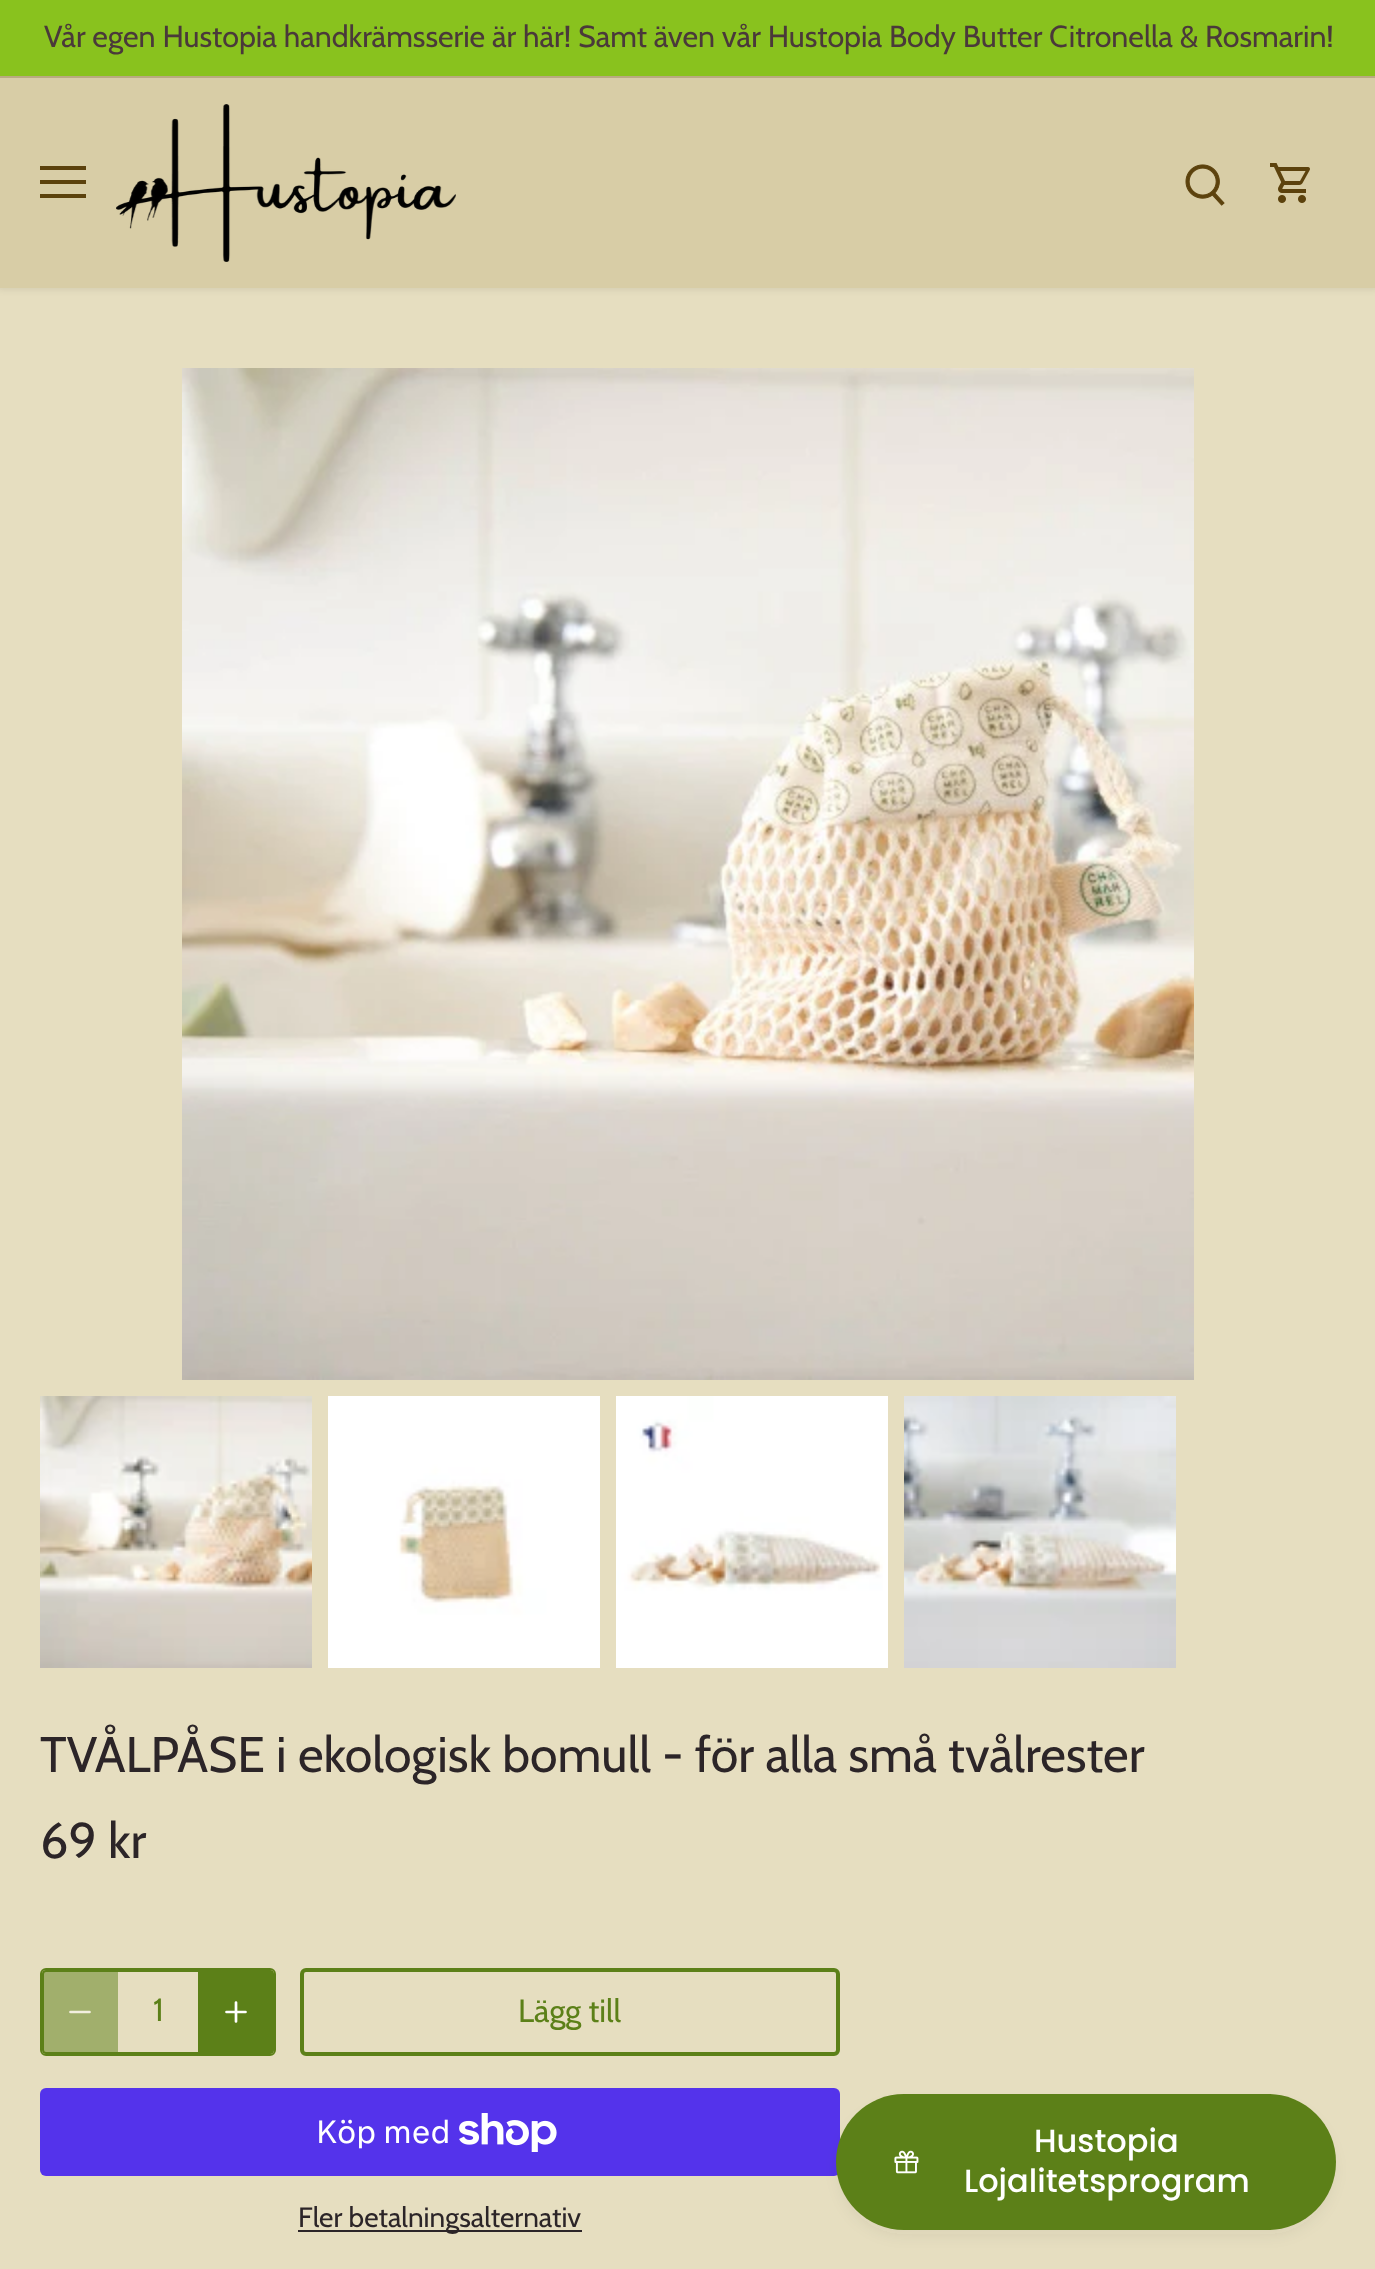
<?xml version="1.0" encoding="UTF-8"?>
<svg xmlns="http://www.w3.org/2000/svg" width="1375" height="2269">
    <defs>
        <filter id="blur1" x="-50%" y="-200%" width="200%" height="500%"><feGaussianBlur stdDeviation="3"/></filter>
        <filter id="blur2" x="-50%" y="-200%" width="200%" height="500%"><feGaussianBlur stdDeviation="8"/></filter>
    </defs>
    <rect width="100%" height="100%" fill="#E6DEC0"/>
    <rect x="-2" y="76" width="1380" height="214" fill="#000000" fill-opacity="0.08" filter="url(#blur1)"/>
    <rect x="0" y="0" width="1375" height="76" fill="#89C21E"/>
    <rect x="0" y="76" width="1375" height="2" fill="#B9AA80"/>
    <text x="44" y="47" font-family="Cabin" font-size="30.4" fill="#4A393A">Vår egen Hustopia handkrämsserie är här! Samt även vår Hustopia Body Butter Citronella &amp; Rosmarin!</text>
    <rect x="0" y="78" width="1375" height="210" fill="#D8CDA6"/>
    <rect x="40" y="166" width="46" height="4" fill="#5C420D"/>
    <rect x="40" y="180" width="46" height="4" fill="#5C420D"/>
    <rect x="40" y="194" width="46" height="4" fill="#5C420D"/>
    <image x="116" y="104" width="340" height="158" href="img_01.png"/>
    <image x="1185" y="164" width="40" height="42" href="img_02.png"/>
    <image x="1270" y="163" width="40" height="40" href="img_03.png"/>
    <image x="182" y="368" width="1012" height="1012" href="img_04.png"/>
    <image x="40" y="1396" width="272" height="272" href="img_05.png"/>
    <image x="328" y="1396" width="272" height="272" href="img_06.png"/>
    <image x="616" y="1396" width="272" height="272" href="img_07.png"/>
    <image x="904" y="1396" width="272" height="272" href="img_08.png"/>
    <text font-family="Cabin" font-size="50" fill="#2C2528">
        <tspan x="40" y="1772">TVÅLPÅSE i ekologisk bomull - för alla små tvålrester</tspan>
        <tspan x="40" y="1858">69 kr</tspan>
    </text>
    <rect x="43" y="1971" width="230" height="82" rx="3" fill="none" stroke="#5C8018" stroke-width="2"/>
    <rect x="41" y="1969" width="234" height="86" rx="5" fill="none" stroke="#5C8018" stroke-width="2"/>
    <path d="M 48 1970 H 118 V 2054 H 48 C 44.5 2054 42 2051.5 42 2048 V 1976 C 42 1972.5 44.5 1970 48 1970 Z" fill="#5C8018" fill-opacity="0.5"/>
    <path d="M 70.5 2012 H 89.5" fill="none" stroke="#F3EFE0" stroke-width="2.7" stroke-linecap="round" stroke-linejoin="round"/>
    <text x="153" y="2021" font-family="Cabin" font-size="32" fill="#5C8018">1</text>
    <path d="M 198 1970 H 268 C 271.5 1970 274 1972.5 274 1976 V 2048 C 274 2051.5 271.5 2054 268 2054 H 198 Z" fill="#5C8018"/>
    <path d="M 236 2002.5 V 2021.5 M 226.5 2012 H 245.5" fill="none" stroke="#FFFFFF" stroke-width="2.7" stroke-linecap="round" stroke-linejoin="round"/>
    <rect x="302" y="1970" width="536" height="84" rx="4" fill="none" stroke="#5C8018" stroke-width="4"/>
    <text x="518" y="2022" font-family="Cabin" font-size="32" fill="#5C8018">Lägg till</text>
    <rect x="40" y="2088" width="800" height="88" rx="6" fill="#5433EB"/>
    <text x="316" y="2143" font-family="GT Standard" font-size="32" fill="#FFFFFF">Köp med</text>
    <image x="459" y="2113" width="98" height="39" href="img_09.png"/>
    <rect x="298" y="2230" width="284" height="2" fill="#2C2528"/>
    <text x="298" y="2227" font-family="Cabin" font-size="28" fill="#2C2528">Fler betalningsalternativ</text>
    <rect x="840" y="2106" width="492" height="128" rx="64" fill="#444444" fill-opacity="0.08" filter="url(#blur2)"/>
    <rect x="836" y="2094" width="500" height="136" rx="68" fill="#5C8018"/>
    <image x="894" y="2150" width="25" height="24" href="img_10.png"/>
    <text x="1034" y="2152" font-family="Poppins" font-size="32" font-weight="500" fill="#FFFFFF">Hustopia</text>
    <text x="964" y="2192" font-family="Poppins" font-size="32" font-weight="500" fill="#FFFFFF">Lojalitetsprogram</text>
</svg>
